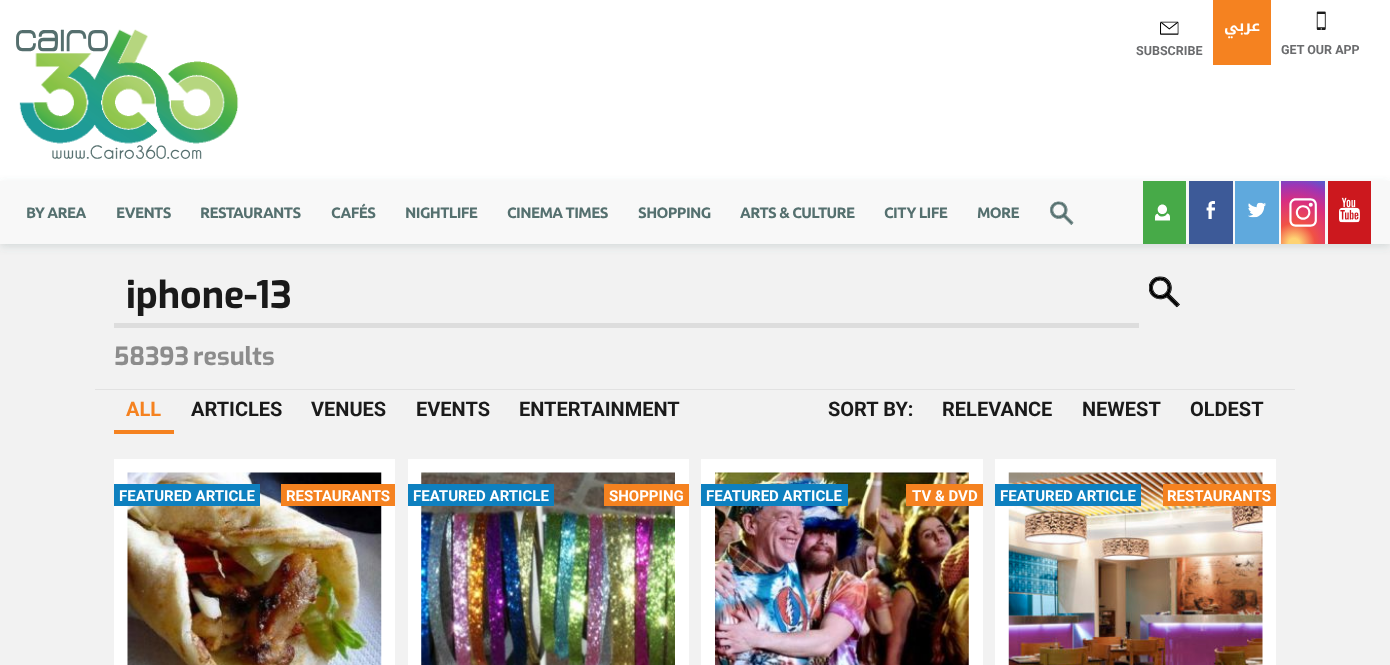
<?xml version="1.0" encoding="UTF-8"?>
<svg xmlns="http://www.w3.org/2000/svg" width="1390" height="665">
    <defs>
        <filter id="blur1" x="-50%" y="-200%" width="200%" height="500%"><feGaussianBlur stdDeviation="4"/></filter>
        <radialGradient id="g1" gradientUnits="userSpaceOnUse" cx="1294" cy="244" r="70"><stop offset="0.08" stop-color="#FED373"/><stop offset="0.3" stop-color="#F15245"/><stop offset="0.62" stop-color="#D92E7F"/><stop offset="0.85" stop-color="#9B36B7"/><stop offset="1" stop-color="#515ECF"/></radialGradient>
        <clipPath id="clip1"><rect x="126" y="275" width="1000" height="41"/></clipPath>
    </defs>
    <rect width="100%" height="100%" fill="#F2F2F2"/>
    <rect x="0" y="0" width="1390" height="181" fill="#FFFFFF"/>
    <image x="16" y="29" width="223" height="130" href="img_01.png"/>
    <rect x="1213" y="0" width="58" height="65" fill="#F58220"/>
    <text x="1260" y="31" font-family="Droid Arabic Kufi" font-size="15" font-weight="700" direction="rtl" fill="#FFFFFF">عربي</text>
    <image x="1160" y="21" width="19" height="14" href="img_02.png"/>
    <text x="1136" y="55" font-family="Roboto" font-size="12.5" font-weight="700" fill="#6A6B6D">SUBSCRIBE</text>
    <image x="1316" y="11" width="10" height="19" href="img_03.png"/>
    <text x="1281" y="54" font-family="Roboto" font-size="12.5" font-weight="700" fill="#6A6B6D">GET OUR APP</text>
    <rect x="0" y="184" width="1390" height="62" fill="#55706F" fill-opacity="0.21" filter="url(#blur1)"/>
    <rect x="0" y="181" width="1390" height="63" fill="#F8F8F8"/>
    <text x="26" y="218" font-family="Ubuntu" font-size="15" font-weight="700" letter-spacing="-0.6" fill="#55706F">BY AREA</text>
    <text x="116" y="218" font-family="Ubuntu" font-size="15" font-weight="700" letter-spacing="-0.6" fill="#55706F">EVENTS</text>
    <text x="200" y="218" font-family="Ubuntu" font-size="15" font-weight="700" letter-spacing="-0.6" fill="#55706F">RESTAURANTS</text>
    <text x="331" y="218" font-family="Ubuntu" font-size="15" font-weight="700" letter-spacing="-0.6" fill="#55706F">CAFÉS</text>
    <text x="405" y="218" font-family="Ubuntu" font-size="15" font-weight="700" letter-spacing="-0.6" fill="#55706F">NIGHTLIFE</text>
    <text x="507" y="218" font-family="Ubuntu" font-size="15" font-weight="700" letter-spacing="-0.6" fill="#55706F">CINEMA TIMES</text>
    <text x="638" y="218" font-family="Ubuntu" font-size="15" font-weight="700" letter-spacing="-0.6" fill="#55706F">SHOPPING</text>
    <text x="740" y="218" font-family="Ubuntu" font-size="15" font-weight="700" letter-spacing="-0.6" fill="#55706F">ARTS &amp; CULTURE</text>
    <text x="884" y="218" font-family="Ubuntu" font-size="15" font-weight="700" letter-spacing="-0.6" fill="#55706F">CITY LIFE</text>
    <text x="977" y="218" font-family="Ubuntu" font-size="15" font-weight="700" letter-spacing="-0.6" fill="#55706F">MORE</text>
    <image x="1050" y="201" width="24" height="24" href="img_04.png"/>
    <rect x="1143" y="181" width="43" height="63" fill="#47AA48"/>
    <image x="1155" y="204" width="15" height="17" href="img_05.png"/>
    <rect x="1189" y="181" width="44" height="63" fill="#3D5A98"/>
    <image x="1206" y="201" width="9" height="18" href="img_06.png"/>
    <rect x="1235" y="181" width="44" height="63" fill="#5FA9DD"/>
    <image x="1248" y="202" width="18" height="16" href="img_07.png"/>
    <rect x="1281" y="181" width="44" height="63" fill="url(#g1)"/>
    <image x="1289" y="198" width="28" height="29" href="img_08.png"/>
    <rect x="1328" y="181" width="43" height="63" fill="#CC181E"/>
    <image x="1339" y="197" width="21" height="26" href="img_09.png"/>
    <rect x="95" y="389" width="1200" height="1" fill="#E2E2E2"/>
    <rect x="114" y="323" width="1025" height="5" fill="#DDDDDD"/>
    <g clip-path="url(#clip1)">
        <text x="126" y="308" font-family="Exo" font-size="37.5" font-weight="700" fill="#1A1A1A">iphone-13</text>
    </g>
    <image x="1149" y="276" width="31" height="32" href="img_10.png"/>
    <text x="114" y="365" font-family="Exo" font-size="25" font-weight="700" fill="#8C8C8C">58393</text>
    <text x="193" y="365" font-family="Exo" font-size="25" font-weight="700" fill="#8C8C8C">results</text>
    <rect x="114" y="430" width="60" height="4" fill="#F58220"/>
    <text x="126" y="416" font-family="Roboto" font-size="20" font-weight="700" fill="#F58220">ALL</text>
    <text x="191" y="416" font-family="Roboto" font-size="20" font-weight="700" fill="#1A1A1A">ARTICLES</text>
    <text x="311" y="416" font-family="Roboto" font-size="20" font-weight="700" fill="#1A1A1A">VENUES</text>
    <text x="416" y="416" font-family="Roboto" font-size="20" font-weight="700" fill="#1A1A1A">EVENTS</text>
    <text x="519" y="416" font-family="Roboto" font-size="20" font-weight="700" fill="#1A1A1A">ENTERTAINMENT</text>
    <text x="828" y="416" font-family="Roboto" font-size="20" font-weight="700" fill="#1A1A1A">SORT BY:</text>
    <text x="942" y="416" font-family="Roboto" font-size="20" font-weight="700" fill="#1A1A1A">RELEVANCE</text>
    <text x="1082" y="416" font-family="Roboto" font-size="20" font-weight="700" fill="#1A1A1A">NEWEST</text>
    <text x="1190" y="416" font-family="Roboto" font-size="20" font-weight="700" fill="#1A1A1A">OLDEST</text>
    <rect x="114" y="459" width="281" height="206" fill="#FFFFFF"/>
    <image x="127" y="472" width="255" height="193" href="img_11.png"/>
    <rect x="114" y="484" width="146" height="22" fill="#0E80BF"/>
    <text x="119" y="501" font-family="Roboto" font-size="15" font-weight="700" fill="#FFFFFF">FEATURED ARTICLE</text>
    <rect x="281" y="484" width="114" height="22" fill="#F58220"/>
    <text x="286" y="501" font-family="Roboto" font-size="15" font-weight="700" fill="#FFFFFF">RESTAURANTS</text>
    <rect x="408" y="459" width="281" height="206" fill="#FFFFFF"/>
    <image x="421" y="472" width="254" height="193" href="img_12.png"/>
    <rect x="408" y="484" width="146" height="22" fill="#0E80BF"/>
    <text x="413" y="501" font-family="Roboto" font-size="15" font-weight="700" fill="#FFFFFF">FEATURED ARTICLE</text>
    <rect x="604" y="484" width="85" height="22" fill="#F58220"/>
    <text x="609" y="501" font-family="Roboto" font-size="15" font-weight="700" fill="#FFFFFF">SHOPPING</text>
    <rect x="701" y="459" width="282" height="206" fill="#FFFFFF"/>
    <image x="715" y="472" width="254" height="193" href="img_13.png"/>
    <rect x="701" y="484" width="147" height="22" fill="#0E80BF"/>
    <text x="706" y="501" font-family="Roboto" font-size="15" font-weight="700" fill="#FFFFFF">FEATURED ARTICLE</text>
    <rect x="906" y="484" width="77" height="22" fill="#F58220"/>
    <text x="912" y="501" font-family="Roboto" font-size="15" font-weight="700" fill="#FFFFFF">TV &amp; DVD</text>
    <rect x="995" y="459" width="281" height="206" fill="#FFFFFF"/>
    <image x="1008" y="472" width="255" height="193" href="img_14.png"/>
    <rect x="995" y="484" width="146" height="22" fill="#0E80BF"/>
    <text x="1000" y="501" font-family="Roboto" font-size="15" font-weight="700" fill="#FFFFFF">FEATURED ARTICLE</text>
    <rect x="1163" y="484" width="113" height="22" fill="#F58220"/>
    <text x="1167" y="501" font-family="Roboto" font-size="15" font-weight="700" fill="#FFFFFF">RESTAURANTS</text>
</svg>
